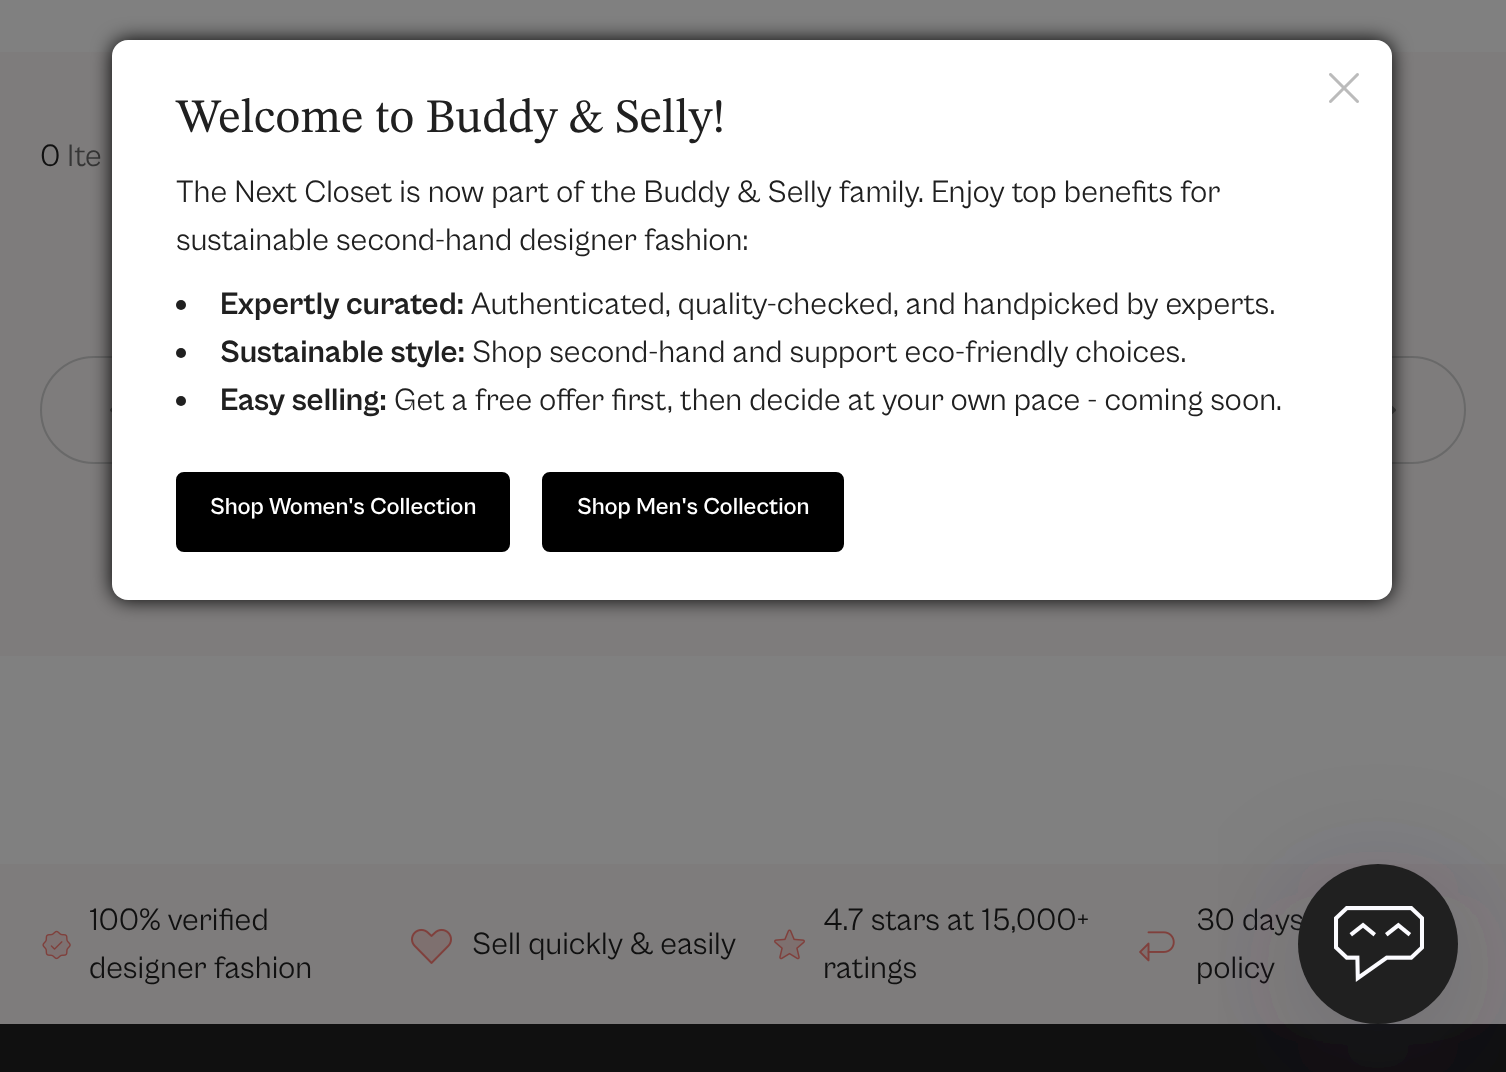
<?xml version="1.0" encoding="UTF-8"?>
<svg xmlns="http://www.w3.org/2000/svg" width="1506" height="1072">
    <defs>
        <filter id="blur1" x="-50%" y="-200%" width="200%" height="500%"><feGaussianBlur stdDeviation="10"/></filter>
        <filter id="blur2" x="-50%" y="-200%" width="200%" height="500%"><feGaussianBlur stdDeviation="64"/></filter>
    </defs>
    <rect width="100%" height="100%" fill="#808080"/>
    <rect x="0" y="52" width="1506" height="604" fill="#7E7C7C"/>
    <text x="40" y="166" font-family="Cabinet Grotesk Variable" font-size="32" fill="#101010">0</text>
    <text x="67" y="166" font-family="Cabinet Grotesk Variable" font-size="32" fill="#363636">Ite</text>
    <rect x="41" y="357" width="182" height="106" rx="53" fill="none" stroke="#696969" stroke-width="2"/>
    <path d="M 136.5 410 H 111.5 M 122 400 L 111.5 410 L 122 420" fill="none" stroke="#4E4E4E" stroke-width="3" stroke-linecap="round" stroke-linejoin="round"/>
    <rect x="1283" y="357" width="182" height="106" rx="53" fill="none" stroke="#696969" stroke-width="2"/>
    <path d="M 1369.5 410 H 1394.5 M 1384 400 L 1394.5 410 L 1384 420" fill="none" stroke="#4E4E4E" stroke-width="3" stroke-linecap="round" stroke-linejoin="round"/>
    <rect x="112" y="40" width="1280" height="560" rx="16" fill="#000000" filter="url(#blur1)"/>
    <rect x="112" y="40" width="1280" height="560" rx="16" fill="#FFFFFF"/>
    <image x="1329" y="73" width="30" height="30" href="img_01.png"/>
    <text x="176" y="132" font-family="STIX Two Text" font-size="48" fill="#202020">Welcome to Buddy &amp; Selly!</text>
    <text font-family="Cabinet Grotesk Variable" font-size="32" fill="#202020">
        <tspan x="176" y="202">The Next Closet is now part of the Buddy &amp; Selly family. Enjoy top benefits for</tspan>
        <tspan x="176" y="250">sustainable second-hand designer fashion:</tspan>
    </text>
    <circle cx="181" cy="305" r="5" fill="#202020"/>
    <text x="220" y="314" font-family="Cabinet Grotesk Variable" font-size="32" font-weight="700" fill="#202020">Expertly curated:</text>
    <text x="471" y="314" font-family="Cabinet Grotesk Variable" font-size="32" fill="#202020">Authenticated, quality-checked, and handpicked by experts.</text>
    <circle cx="181" cy="353" r="5" fill="#202020"/>
    <text x="220" y="362" font-family="Cabinet Grotesk Variable" font-size="32" font-weight="700" fill="#202020">Sustainable style:</text>
    <text x="472" y="362" font-family="Cabinet Grotesk Variable" font-size="32" fill="#202020">Shop second-hand and support eco-friendly choices.</text>
    <circle cx="181" cy="401" r="5" fill="#202020"/>
    <text x="220" y="410" font-family="Cabinet Grotesk Variable" font-size="32" font-weight="700" fill="#202020">Easy selling:</text>
    <text x="394" y="410" font-family="Cabinet Grotesk Variable" font-size="32" fill="#202020">Get a free offer first, then decide at your own pace - coming soon.</text>
    <rect x="177" y="473" width="332" height="78" rx="7" fill="#000000" stroke="#000000" stroke-width="2"/>
    <text x="210" y="514" font-family="Cabinet Grotesk Variable" font-size="24" font-weight="600" fill="#FFFFFF">Shop Women's Collection</text>
    <rect x="543" y="473" width="300" height="78" rx="7" fill="#000000" stroke="#000000" stroke-width="2"/>
    <text x="577" y="514" font-family="Cabinet Grotesk Variable" font-size="24" font-weight="600" fill="#FFFFFF">Shop Men's Collection</text>
    <rect x="0" y="864" width="1506" height="160" fill="#7E7C7C"/>
    <image x="42" y="930" width="29" height="30" href="img_02.png"/>
    <text font-family="Cabinet Grotesk Variable" font-size="32" fill="#101010">
        <tspan x="89" y="930">100% verified</tspan>
        <tspan x="89" y="978">designer fashion</tspan>
    </text>
    <image x="411" y="928" width="41" height="36" href="img_03.png"/>
    <text x="472" y="954" font-family="Cabinet Grotesk Variable" font-size="32" fill="#101010">Sell quickly &amp; easily</text>
    <image x="774" y="929" width="31" height="31" href="img_04.png"/>
    <text font-family="Cabinet Grotesk Variable" font-size="32" fill="#101010">
        <tspan x="823" y="930">4.7 stars at 15,000+</tspan>
        <tspan x="823" y="978">ratings</tspan>
    </text>
    <image x="1139" y="931" width="36" height="31" href="img_05.png"/>
    <text font-family="Cabinet Grotesk Variable" font-size="32" fill="#101010">
        <tspan x="1196" y="930">30 days</tspan>
        <tspan x="1196" y="978">policy</tspan>
    </text>
    <rect x="0" y="1024" width="1506" height="48" fill="#101010"/>
    <rect x="1298" y="888" width="160" height="160" rx="80" fill="#3E2F59" fill-opacity="0.24" filter="url(#blur2)"/>
    <circle cx="1378" cy="944" r="80" fill="#202020"/>
    <image x="1334" y="906" width="90" height="76" href="img_06.png"/>
</svg>
